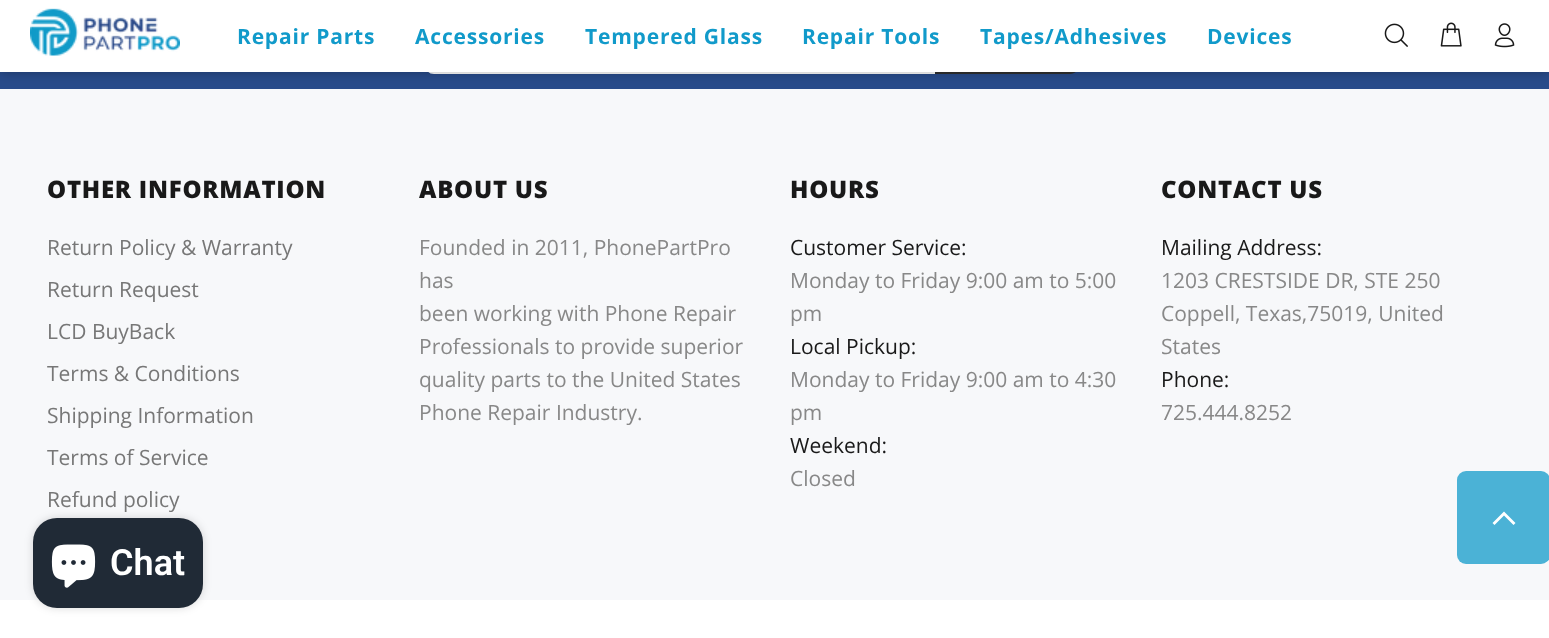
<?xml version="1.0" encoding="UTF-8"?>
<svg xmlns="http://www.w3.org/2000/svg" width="1549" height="638">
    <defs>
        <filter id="blur1" x="-50%" y="-200%" width="200%" height="500%"><feGaussianBlur stdDeviation="6"/></filter>
        <filter id="blur2" x="-50%" y="-200%" width="200%" height="500%"><feGaussianBlur stdDeviation="4"/></filter>
    </defs>
    <rect width="100%" height="100%" fill="#FFFFFF"/>
    <rect x="0" y="72" width="1549" height="17" fill="#284B8A"/>
    <path d="M 434 15 H 934 V 73 H 434 C 429.5 73 426 69.5 426 65 V 23 C 426 18.5 429.5 15 434 15 Z" fill="none" stroke="#FFFFFF" stroke-width="2"/>
    <path d="M 935 14 H 1070 C 1075 14 1079 18 1079 23 V 65 C 1079 70 1075 74 1070 74 H 935 Z" fill="#303030"/>
    <rect x="0" y="89" width="1549" height="511" fill="#F7F8FA"/>
    <rect x="0" y="0" width="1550" height="72" fill="#000000" fill-opacity="0.3" filter="url(#blur1)"/>
    <rect x="0" y="0" width="1549" height="72" fill="#FFFFFF"/>
    <image x="30" y="8" width="150" height="48" href="img_01.png"/>
    <text x="237" y="44" font-family="Open Sans" font-size="21" font-weight="700" letter-spacing="0.8" fill="#119ACA">Repair Parts</text>
    <text x="415" y="44" font-family="Open Sans" font-size="21" font-weight="700" letter-spacing="0.8" fill="#119ACA">Accessories</text>
    <text x="585" y="44" font-family="Open Sans" font-size="21" font-weight="700" letter-spacing="0.8" fill="#119ACA">Tempered Glass</text>
    <text x="802" y="44" font-family="Open Sans" font-size="21" font-weight="700" letter-spacing="0.8" fill="#119ACA">Repair Tools</text>
    <text x="980" y="44" font-family="Open Sans" font-size="21" font-weight="700" letter-spacing="0.8" fill="#119ACA">Tapes/Adhesives</text>
    <text x="1207" y="44" font-family="Open Sans" font-size="21" font-weight="700" letter-spacing="0.8" fill="#119ACA">Devices</text>
    <image x="1384" y="23" width="24" height="24" href="img_02.png"/>
    <image x="1440" y="22" width="22" height="25" href="img_03.png"/>
    <image x="1494" y="23" width="21" height="25" href="img_04.png"/>
    <text x="47" y="198" font-family="Open Sans" font-size="24" font-weight="800" letter-spacing="0.75" fill="#191919">OTHER INFORMATION</text>
    <text x="47" y="255" font-family="Open Sans" font-size="21" fill="#777777">Return Policy &amp; Warranty</text>
    <text x="47" y="297" font-family="Open Sans" font-size="21" fill="#777777">Return Request</text>
    <text x="47" y="339" font-family="Open Sans" font-size="21" fill="#777777">LCD BuyBack</text>
    <text x="47" y="381" font-family="Open Sans" font-size="21" fill="#777777">Terms &amp; Conditions</text>
    <text x="47" y="423" font-family="Open Sans" font-size="21" fill="#777777">Shipping Information</text>
    <text x="47" y="465" font-family="Open Sans" font-size="21" fill="#777777">Terms of Service</text>
    <text x="47" y="507" font-family="Open Sans" font-size="21" fill="#777777">Refund policy</text>
    <text x="419" y="198" font-family="Open Sans" font-size="24" font-weight="800" letter-spacing="0.75" fill="#191919">ABOUT US</text>
    <text font-family="Open Sans" font-size="21" fill="#888888">
        <tspan x="419" y="255">Founded in 2011, PhonePartPro</tspan>
        <tspan x="419" y="288">has</tspan>
        <tspan x="419" y="321">been working with Phone Repair</tspan>
        <tspan x="419" y="354">Professionals to provide superior</tspan>
        <tspan x="419" y="387">quality parts to the United States</tspan>
        <tspan x="419" y="420">Phone Repair Industry.</tspan>
    </text>
    <text x="790" y="198" font-family="Open Sans" font-size="24" font-weight="800" letter-spacing="0.75" fill="#191919">HOURS</text>
    <text x="790" y="255" font-family="Open Sans" font-size="21" fill="#191919">Customer Service:</text>
    <text font-family="Open Sans" font-size="21" fill="#888888">
        <tspan x="790" y="288">Monday to Friday 9:00 am to 5:00</tspan>
        <tspan x="790" y="321">pm</tspan>
    </text>
    <text x="790" y="354" font-family="Open Sans" font-size="21" fill="#191919">Local Pickup:</text>
    <text font-family="Open Sans" font-size="21" fill="#888888">
        <tspan x="790" y="387">Monday to Friday 9:00 am to 4:30</tspan>
        <tspan x="790" y="420">pm</tspan>
    </text>
    <text x="790" y="453" font-family="Open Sans" font-size="21" fill="#191919">Weekend:</text>
    <text x="790" y="486" font-family="Open Sans" font-size="21" fill="#888888">Closed</text>
    <text x="1161" y="198" font-family="Open Sans" font-size="24" font-weight="800" letter-spacing="0.75" fill="#191919">CONTACT US</text>
    <text x="1161" y="255" font-family="Open Sans" font-size="21" fill="#191919">Mailing Address:</text>
    <text font-family="Open Sans" font-size="21" fill="#888888">
        <tspan x="1161" y="288">1203 CRESTSIDE DR, STE 250</tspan>
        <tspan x="1161" y="321">Coppell, Texas,75019, United</tspan>
        <tspan x="1161" y="354">States</tspan>
    </text>
    <text x="1161" y="387" font-family="Open Sans" font-size="21" fill="#191919">Phone:</text>
    <text x="1161" y="420" font-family="Open Sans" font-size="21" fill="#888888">725.444.8252</text>
    <rect x="1457" y="471" width="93" height="93" rx="9" fill="#4BB2D6"/>
    <path d="M 1513.5 525 L 1504 515.5 L 1494.5 525 L 1492.5 523 L 1504 511.5 L 1515.5 523 Z" fill="#FFFFFF"/>
    <rect x="33" y="518" width="170" height="90" rx="24" fill="#000000" fill-opacity="0.15" filter="url(#blur2)"/>
    <rect x="33" y="518" width="170" height="90" rx="24" fill="#202A36"/>
    <image x="51" y="544" width="45" height="44" href="img_05.png"/>
    <text x="110" y="575" font-family="Roboto" font-size="36" font-weight="600" fill="#FFFFFF">Chat</text>
</svg>
